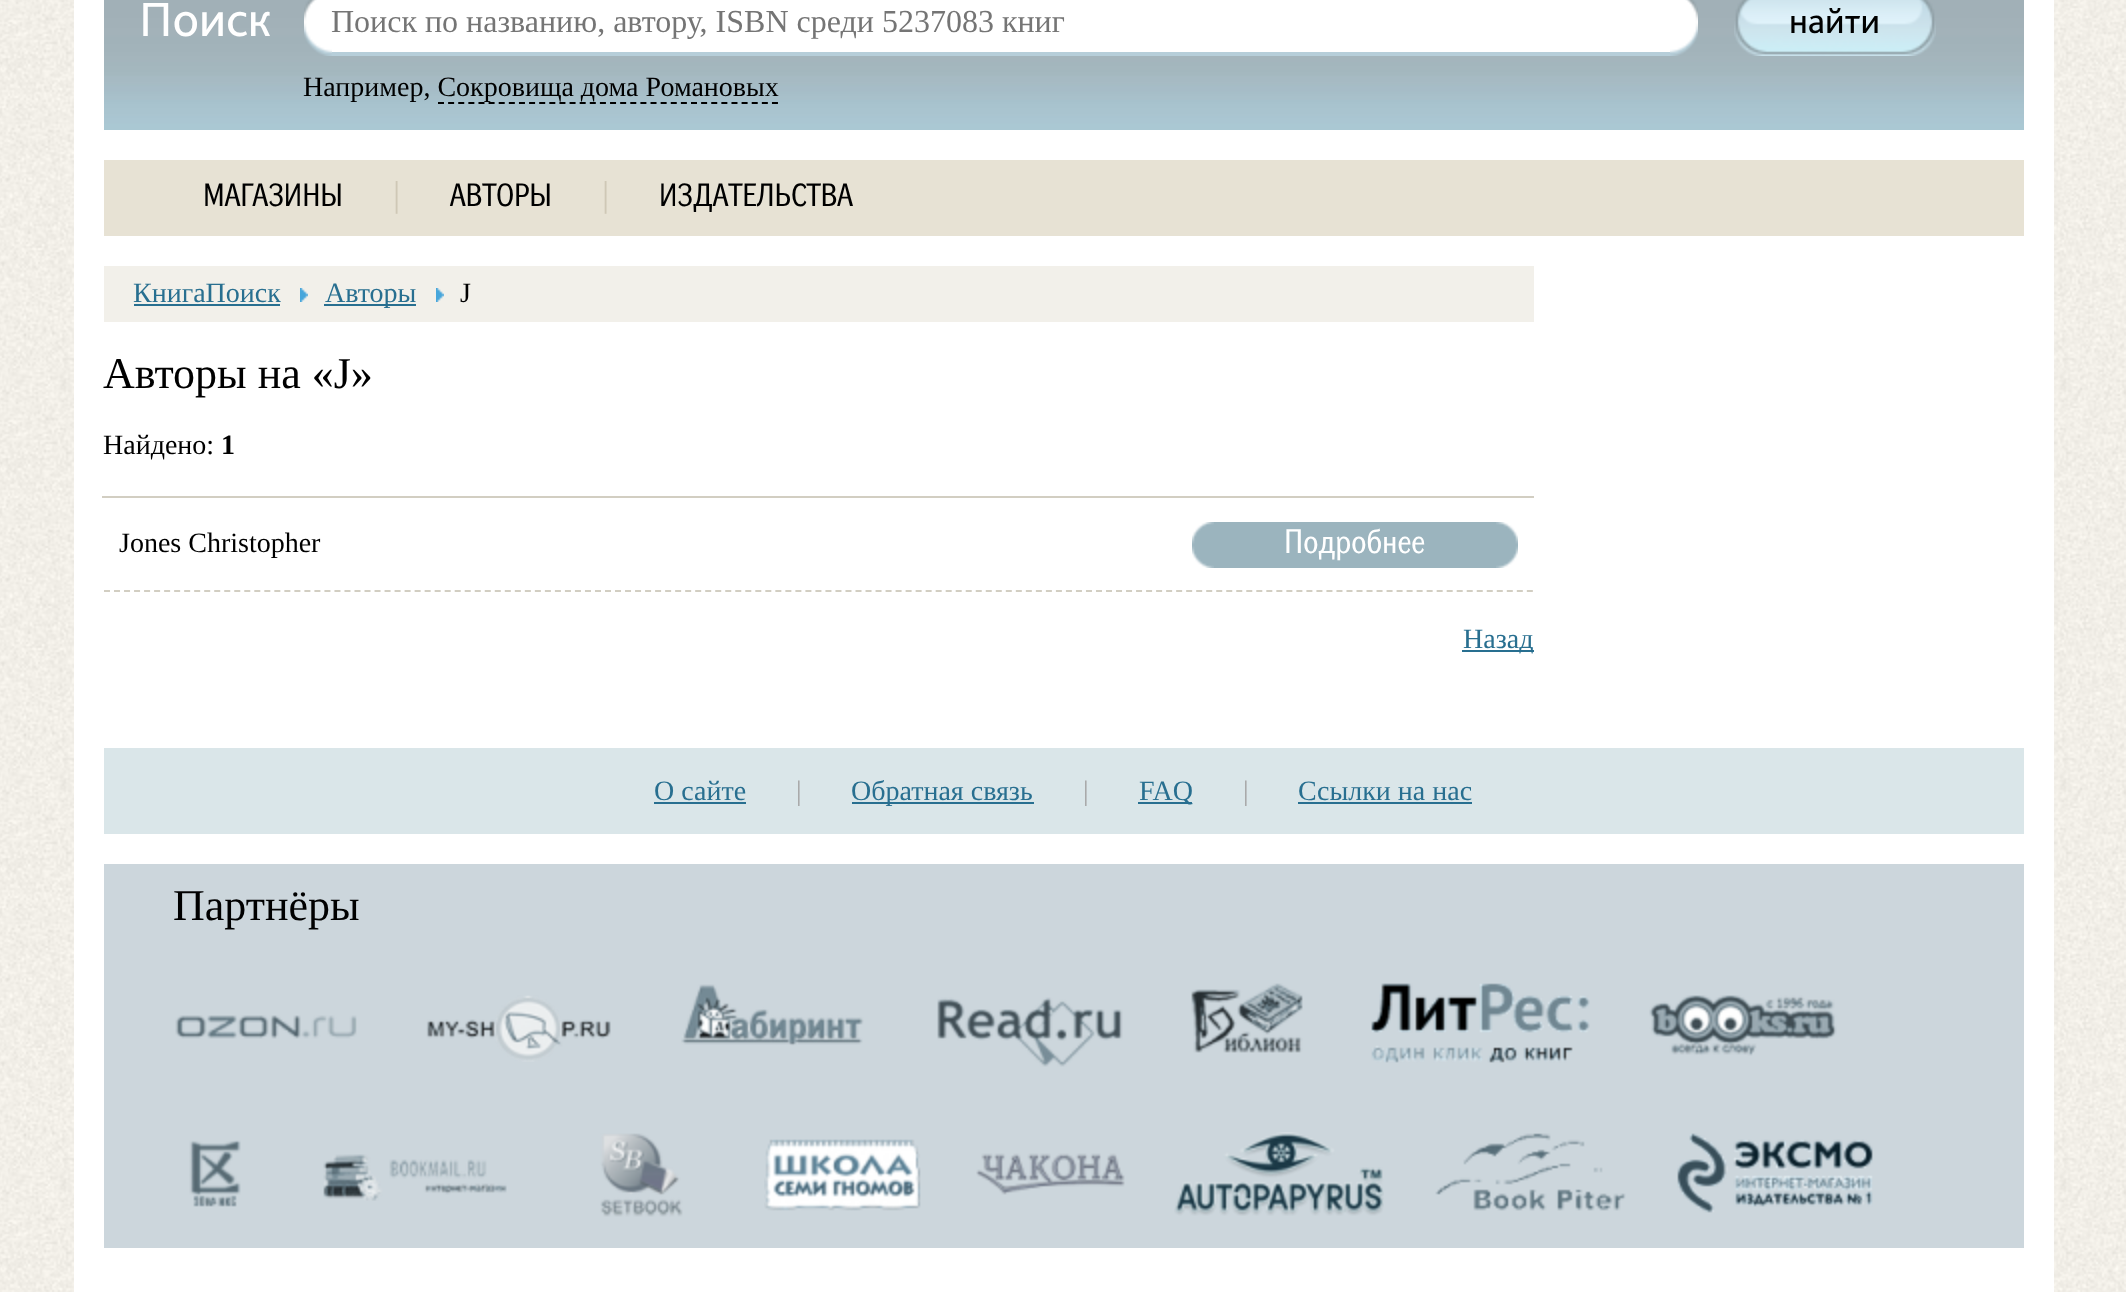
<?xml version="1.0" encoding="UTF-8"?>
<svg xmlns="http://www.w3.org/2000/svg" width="2126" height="1292">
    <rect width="100%" height="100%" fill="#FFFFFF"/>
    <image x="0" y="0" width="2126" height="1292" href="img_01.png"/>
    <rect x="74" y="0" width="1980" height="1292" fill="#FFFFFF"/>
    <image x="104" y="0" width="1920" height="130" href="img_02.png"/>
    <text x="139" y="36" font-family="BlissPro" font-size="50" fill="#FFFFFF">Поиск</text>
    <image x="304" y="0" width="28" height="56" href="img_03.png"/>
    <rect x="332" y="0" width="1338" height="52" fill="#FFFFFF"/>
    <rect x="332" y="52" width="1338" height="4" fill="#B6CED9"/>
    <text x="331" y="32" font-family="Liberation Serif" font-size="32" fill="#757575">Поиск по названию, автору, ISBN среди 5237083 книг</text>
    <image x="1670" y="0" width="28" height="56" href="img_04.png"/>
    <image x="1734" y="0" width="202" height="56" href="img_05.png"/>
    <text x="1789" y="33" font-family="BlissPro" font-size="36" fill="#000000">найти</text>
    <text x="303" y="96" font-family="Liberation Serif" font-size="28" fill="#000000">Например, Сокровища дома Романовых</text>
    <path d="M 438 103 H 778" fill="none" stroke="#000000" stroke-width="2" stroke-dasharray="6 4.12"/>
    <rect x="104" y="160" width="1920" height="76" fill="#E7E2D4"/>
    <text x="203" y="206" font-family="'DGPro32'" font-size="32" fill="#000000">МАГАЗИНЫ</text>
    <text x="393" y="206" font-family="Liberation Serif" font-size="36" fill="#CFC8B6">|</text>
    <text x="450" y="206" font-family="'DGPro32'" font-size="32" fill="#000000">АВТОРЫ</text>
    <text x="602" y="206" font-family="Liberation Serif" font-size="36" fill="#CFC8B6">|</text>
    <text x="659" y="206" font-family="'DGPro32'" font-size="32" fill="#000000">ИЗДАТЕЛЬСТВА</text>
    <rect x="104" y="266" width="1430" height="56" fill="#F2F0EA"/>
    <text x="133" y="302" font-family="Liberation Serif" font-size="28" fill="#286F90">КнигаПоиск</text>
    <rect x="134" y="304" width="146" height="2" fill="#286F90"/>
    <image x="300" y="288" width="8" height="14" href="img_06.png"/>
    <rect x="324" y="304" width="92" height="2" fill="#286F90"/>
    <text x="325" y="302" font-family="Liberation Serif" font-size="28" fill="#286F90">Авторы</text>
    <image x="436" y="288" width="8" height="14" href="img_06.png"/>
    <text x="460" y="302" font-family="Liberation Serif" font-size="28" fill="#000000">J</text>
    <text x="103" y="388" font-family="Liberation Serif" font-size="44" fill="#000000">Авторы на «J»</text>
    <text x="103" y="454" font-family="Liberation Serif" font-size="28" fill="#000000">Найдено:</text>
    <text x="221" y="454" font-family="Liberation Serif" font-size="28" font-weight="700" fill="#000000">1</text>
    <rect x="102" y="496" width="1432" height="2" fill="#D2CEC2"/>
    <text x="119" y="552" font-family="Liberation Serif" font-size="28" fill="#000000">Jones Christopher</text>
    <rect x="1214" y="522" width="282" height="46" fill="#9BB4BE"/>
    <image x="1192" y="522" width="22" height="46" href="img_07.png"/>
    <text x="1284" y="553" font-family="'DGPro32'" font-size="34" fill="#FFFFFF">Подробнее</text>
    <image x="1496" y="522" width="22" height="46" href="img_08.png"/>
    <path d="M 104 591 H 1534" fill="none" stroke="#D2CEC2" stroke-width="2" stroke-dasharray="6 4.02"/>
    <rect x="1462" y="650" width="72" height="2" fill="#286F90"/>
    <text x="1463" y="648" font-family="Liberation Serif" font-size="28" fill="#286F90">Назад</text>
    <rect x="104" y="748" width="1920" height="86" fill="#DAE6E9"/>
    <text x="654" y="800" font-family="Liberation Serif" font-size="28" fill="#286F90">О сайте</text>
    <rect x="654" y="802" width="92" height="2" fill="#286F90"/>
    <text x="796" y="800" font-family="Liberation Serif" font-size="28" fill="#A4A4A4">|</text>
    <rect x="852" y="802" width="182" height="2" fill="#286F90"/>
    <text x="851" y="800" font-family="Liberation Serif" font-size="28" fill="#286F90">Обратная связь</text>
    <text x="1083" y="800" font-family="Liberation Serif" font-size="28" fill="#A4A4A4">|</text>
    <rect x="1138" y="802" width="54" height="2" fill="#286F90"/>
    <text x="1139" y="800" font-family="Liberation Serif" font-size="28" fill="#286F90">FAQ</text>
    <text x="1243" y="800" font-family="Liberation Serif" font-size="28" fill="#A4A4A4">|</text>
    <text x="1298" y="800" font-family="Liberation Serif" font-size="28" fill="#286F90">Ссылки на нас</text>
    <rect x="1298" y="802" width="174" height="2" fill="#286F90"/>
    <rect x="104" y="864" width="1920" height="384" fill="#CCD6DC"/>
    <text x="173" y="920" font-family="Liberation Serif" font-size="44" fill="#000000">Партнёры</text>
    <image x="175" y="1015" width="182" height="24" href="img_09.png"/>
    <image x="426" y="995" width="185" height="67" href="img_10.png"/>
    <image x="681" y="984" width="183" height="62" href="img_11.png"/>
    <image x="937" y="997" width="186" height="70" href="img_12.png"/>
    <image x="1191" y="983" width="112" height="70" href="img_13.png"/>
    <image x="1371" y="983" width="219" height="80" href="img_14.png"/>
    <image x="1649" y="995" width="188" height="61" href="img_15.png"/>
    <image x="189" y="1140" width="52" height="67" href="img_16.png"/>
    <image x="323" y="1154" width="184" height="47" href="img_17.png"/>
    <image x="600" y="1133" width="83" height="84" href="img_18.png"/>
    <image x="764" y="1139" width="157" height="72" href="img_19.png"/>
    <image x="976" y="1153" width="149" height="42" href="img_20.png"/>
    <image x="1174" y="1132" width="210" height="84" href="img_21.png"/>
    <image x="1435" y="1133" width="191" height="78" href="img_22.png"/>
    <image x="1677" y="1133" width="196" height="80" href="img_23.png"/>
</svg>
